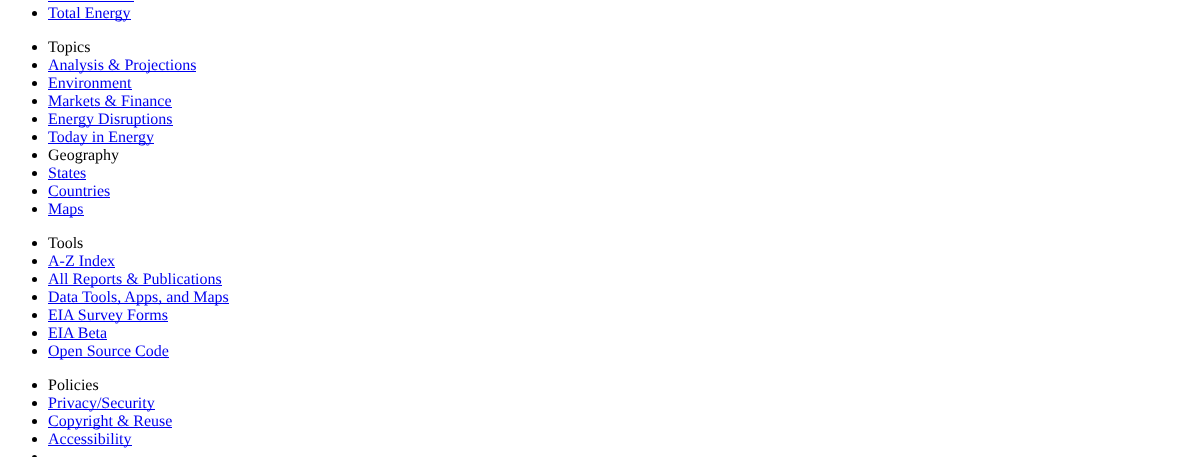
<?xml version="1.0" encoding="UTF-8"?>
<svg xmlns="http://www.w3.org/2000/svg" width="1201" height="457">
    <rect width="100%" height="100%" fill="#FFFFFF"/>
    <rect x="48" y="1" width="86" height="1" fill="#0000EE"/>
    <circle cx="34.5" cy="13.5" r="2.5" fill="#000000"/>
    <rect x="48" y="19" width="83" height="1" fill="#0000EE"/>
    <text x="48" y="18" font-family="Liberation Serif" font-size="16" fill="#0000EE">Total Energy</text>
    <circle cx="34.5" cy="47.5" r="2.5" fill="#000000"/>
    <text x="48" y="52" font-family="Liberation Serif" font-size="16" fill="#000000">Topics</text>
    <circle cx="34.5" cy="65.5" r="2.5" fill="#000000"/>
    <rect x="48" y="71" width="148" height="1" fill="#0000EE"/>
    <text x="48" y="70" font-family="Liberation Serif" font-size="16" fill="#0000EE">Analysis &amp; Projections</text>
    <circle cx="34.5" cy="83.5" r="2.5" fill="#000000"/>
    <text x="48" y="88" font-family="Liberation Serif" font-size="16" fill="#0000EE">Environment</text>
    <rect x="48" y="89" width="84" height="1" fill="#0000EE"/>
    <circle cx="34.5" cy="101.5" r="2.5" fill="#000000"/>
    <text x="48" y="106" font-family="Liberation Serif" font-size="16" fill="#0000EE">Markets &amp; Finance</text>
    <rect x="48" y="107" width="124" height="1" fill="#0000EE"/>
    <circle cx="34.5" cy="119.5" r="2.5" fill="#000000"/>
    <rect x="48" y="125" width="125" height="1" fill="#0000EE"/>
    <text x="48" y="124" font-family="Liberation Serif" font-size="16" fill="#0000EE">Energy Disruptions</text>
    <circle cx="34.5" cy="137.5" r="2.5" fill="#000000"/>
    <rect x="48" y="143" width="106" height="1" fill="#0000EE"/>
    <text x="48" y="142" font-family="Liberation Serif" font-size="16" fill="#0000EE">Today in Energy</text>
    <circle cx="34.5" cy="155.5" r="2.5" fill="#000000"/>
    <text x="48" y="160" font-family="Liberation Serif" font-size="16" fill="#000000">Geography</text>
    <circle cx="34.5" cy="173.5" r="2.5" fill="#000000"/>
    <text x="48" y="178" font-family="Liberation Serif" font-size="16" fill="#0000EE">States</text>
    <rect x="48" y="179" width="38" height="1" fill="#0000EE"/>
    <circle cx="34.5" cy="191.5" r="2.5" fill="#000000"/>
    <text x="48" y="196" font-family="Liberation Serif" font-size="16" fill="#0000EE">Countries</text>
    <rect x="48" y="197" width="62" height="1" fill="#0000EE"/>
    <circle cx="34.5" cy="209.5" r="2.5" fill="#000000"/>
    <rect x="48" y="215" width="36" height="1" fill="#0000EE"/>
    <text x="48" y="214" font-family="Liberation Serif" font-size="16" fill="#0000EE">Maps</text>
    <circle cx="34.5" cy="243.5" r="2.5" fill="#000000"/>
    <text x="48" y="248" font-family="Liberation Serif" font-size="16" fill="#000000">Tools</text>
    <circle cx="34.5" cy="261.5" r="2.5" fill="#000000"/>
    <text x="48" y="266" font-family="Liberation Serif" font-size="16" fill="#0000EE">A-Z Index</text>
    <rect x="48" y="267" width="67" height="1" fill="#0000EE"/>
    <circle cx="34.5" cy="279.5" r="2.5" fill="#000000"/>
    <rect x="48" y="285" width="174" height="1" fill="#0000EE"/>
    <text x="48" y="284" font-family="Liberation Serif" font-size="16" fill="#0000EE">All Reports &amp; Publications</text>
    <circle cx="34.5" cy="297.5" r="2.5" fill="#000000"/>
    <rect x="48" y="303" width="181" height="1" fill="#0000EE"/>
    <text x="48" y="302" font-family="Liberation Serif" font-size="16" fill="#0000EE">Data Tools, Apps, and Maps</text>
    <circle cx="34.5" cy="315.5" r="2.5" fill="#000000"/>
    <rect x="48" y="321" width="120" height="1" fill="#0000EE"/>
    <text x="48" y="320" font-family="Liberation Serif" font-size="16" fill="#0000EE">EIA Survey Forms</text>
    <circle cx="34.5" cy="333.5" r="2.5" fill="#000000"/>
    <text x="48" y="338" font-family="Liberation Serif" font-size="16" fill="#0000EE">EIA Beta</text>
    <rect x="48" y="339" width="59" height="1" fill="#0000EE"/>
    <circle cx="34.5" cy="351.5" r="2.5" fill="#000000"/>
    <rect x="48" y="357" width="121" height="1" fill="#0000EE"/>
    <text x="48" y="356" font-family="Liberation Serif" font-size="16" fill="#0000EE">Open Source Code</text>
    <circle cx="34.5" cy="385.5" r="2.5" fill="#000000"/>
    <text x="48" y="390" font-family="Liberation Serif" font-size="16" fill="#000000">Policies</text>
    <circle cx="34.5" cy="403.5" r="2.5" fill="#000000"/>
    <rect x="48" y="409" width="107" height="1" fill="#0000EE"/>
    <text x="48" y="408" font-family="Liberation Serif" font-size="16" fill="#0000EE">Privacy/Security</text>
    <circle cx="34.5" cy="421.5" r="2.5" fill="#000000"/>
    <rect x="48" y="427" width="124" height="1" fill="#0000EE"/>
    <text x="48" y="426" font-family="Liberation Serif" font-size="16" fill="#0000EE">Copyright &amp; Reuse</text>
    <circle cx="34.5" cy="439.5" r="2.5" fill="#000000"/>
    <rect x="48" y="445" width="84" height="1" fill="#0000EE"/>
    <text x="48" y="444" font-family="Liberation Serif" font-size="16" fill="#0000EE">Accessibility</text>
    <circle cx="34.5" cy="457.5" r="2.5" fill="#000000"/>
</svg>
